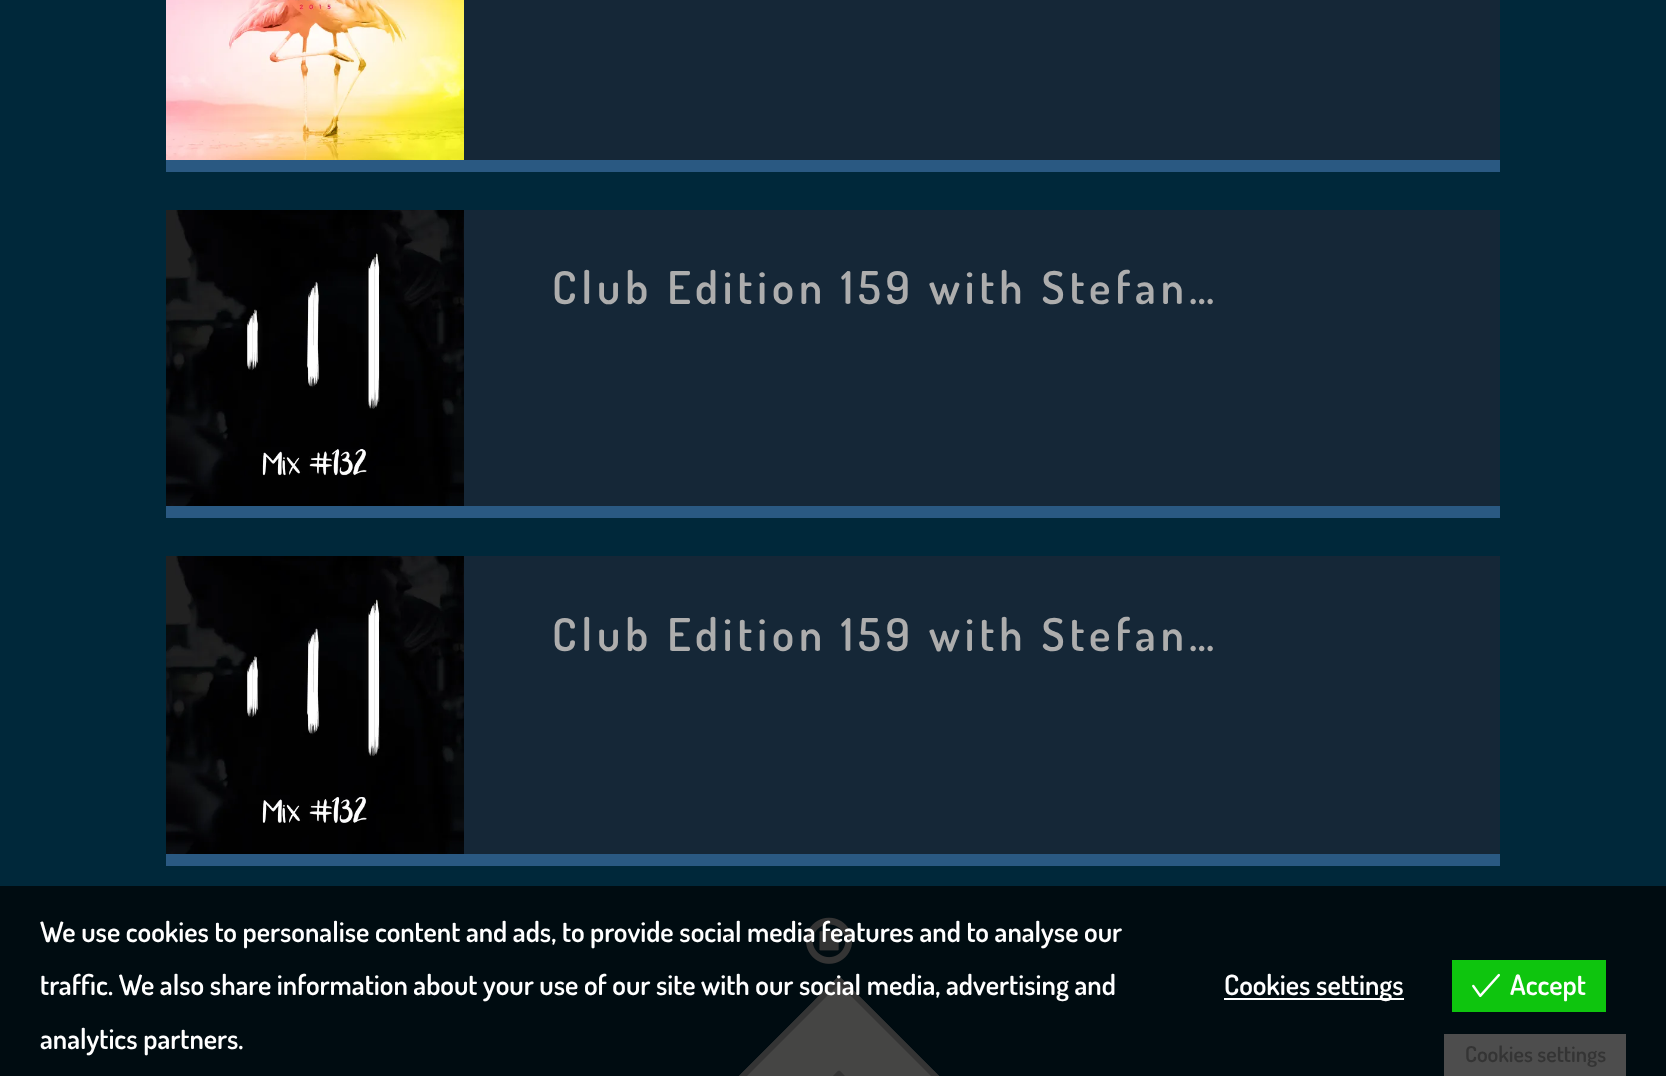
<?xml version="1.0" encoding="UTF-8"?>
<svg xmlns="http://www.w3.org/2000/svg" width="1666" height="1076">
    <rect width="100%" height="100%" fill="#00283A"/>
    <rect x="0" y="886" width="1666" height="190" fill="#000C11"/>
    <rect x="166" y="160" width="1334" height="12" fill="#2A5982"/>
    <rect x="464" y="0" width="1036" height="160" fill="#152737"/>
    <image x="166" y="0" width="298" height="160" href="img_01.png"/>
    <rect x="166" y="506" width="1334" height="12" fill="#2A5982"/>
    <rect x="464" y="210" width="1036" height="296" fill="#152737"/>
    <image x="166" y="210" width="298" height="296" href="img_02.png"/>
    <text x="552" y="304" font-family="Dosis" font-size="45.25" font-weight="600" letter-spacing="5" fill="#ADADAD">Club Edition 159 with Stefan…</text>
    <rect x="166" y="854" width="1334" height="12" fill="#2A5982"/>
    <rect x="464" y="556" width="1036" height="298" fill="#152737"/>
    <image x="166" y="556" width="298" height="298" href="img_03.png"/>
    <text x="552" y="651" font-family="Dosis" font-size="45.25" font-weight="600" letter-spacing="5" fill="#ADADAD">Club Edition 159 with Stefan…</text>
    <image x="806" y="917" width="47" height="47" href="img_04.png"/>
    <path d="M 839 976 L 946 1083 L 839 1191 L 732 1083 Z" fill="#454544"/>
    <path d="M 839 976 L 946 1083 H 938 L 839 984 Z" fill="#343434"/>
    <path d="M 732 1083 L 839 976 V 984 L 740 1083 Z" fill="#343434"/>
    <path d="M 865 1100 C 859 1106 860 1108 854 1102 L 839 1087 L 824 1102 C 819 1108 819 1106 814 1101 C 810 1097 813 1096 817 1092 L 833 1076 C 840 1069 838 1069 845 1076 L 861 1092 C 862 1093 868 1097 865 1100 Z" fill="#343434"/>
    <text font-family="Dosis" font-size="28" font-weight="600" fill="#FFFFFF">
        <tspan x="40" y="942">We use cookies to personalise content and ads, to provide social media features and to analyse our</tspan>
        <tspan x="40" y="995">traffic. We also share information about your use of our site with our social media, advertising and</tspan>
        <tspan x="40" y="1049">analytics partners.</tspan>
    </text>
    <rect x="1224" y="998" width="180" height="2" fill="#FFFFFF"/>
    <text x="1224" y="995" font-family="Dosis" font-size="28" font-weight="600" fill="#FFFFFF">Cookies settings</text>
    <rect x="1452" y="960" width="154" height="52" fill="#0EC50E"/>
    <image x="1472" y="973" width="28" height="25" href="img_05.png"/>
    <text x="1510" y="995" font-family="Dosis" font-size="28" font-weight="600" fill="#FFFFFF">Accept</text>
    <rect x="1444" y="1034" width="182" height="42" fill="#4D4D4D"/>
    <text x="1465" y="1062" font-family="Dosis" font-size="22" font-weight="600" fill="#343434">Cookies settings</text>
</svg>
